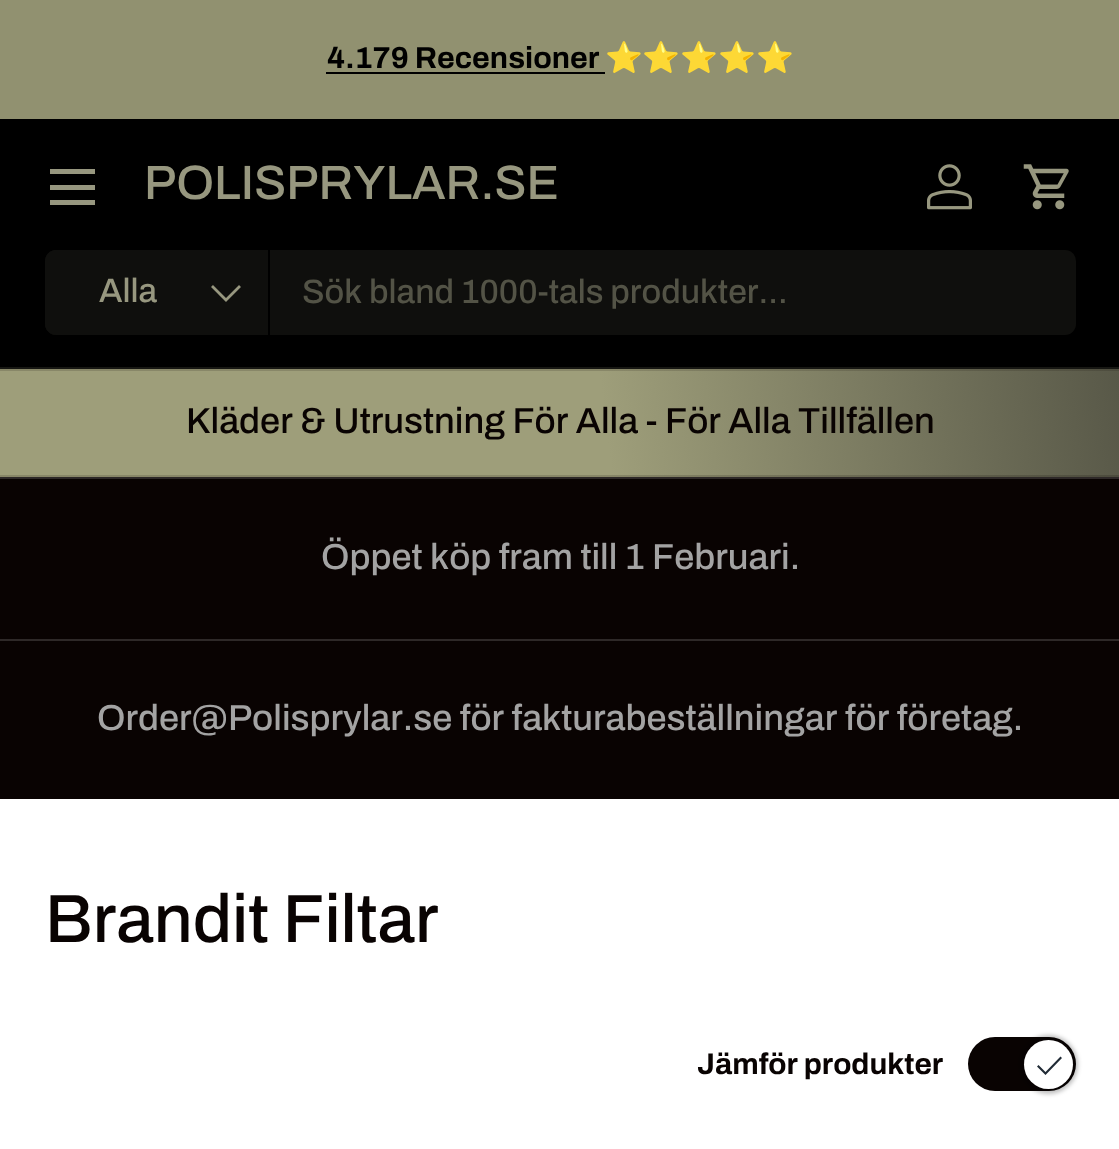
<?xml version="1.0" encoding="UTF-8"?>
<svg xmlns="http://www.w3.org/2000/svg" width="1119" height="1149">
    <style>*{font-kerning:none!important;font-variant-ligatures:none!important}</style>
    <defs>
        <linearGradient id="g1" gradientUnits="userSpaceOnUse" x1="2.1" y1="388" x2="1118" y2="251"><stop offset="0.54" stop-color="#888768"/><stop offset="1" stop-color="#4C4B3D"/></linearGradient>
        <linearGradient id="g2" gradientUnits="userSpaceOnUse" x1="2.1" y1="492" x2="1118" y2="354"><stop offset="0.54" stop-color="#9E9E7A"/><stop offset="1" stop-color="#585848"/></linearGradient>
        <linearGradient id="g3" gradientUnits="userSpaceOnUse" x1="2.1" y1="595" x2="1118" y2="458"><stop offset="0.54" stop-color="#888768"/><stop offset="1" stop-color="#4C4B3D"/></linearGradient>
        <filter id="blur1" x="-50%" y="-200%" width="200%" height="500%"><feGaussianBlur stdDeviation="2"/></filter>
    </defs>
    <rect width="100%" height="100%" fill="#FFFFFF"/>
    <rect x="0" y="0" width="1119" height="119" fill="#919170"/>
    <text x="327" y="68" font-family="Archivo" font-size="30.4" font-weight="700" fill="#000000">4.179 Recensioner</text>
    <rect x="326" y="72" width="279" height="2" fill="#000000"/>
    <text x="605" y="68" font-family="Noto Color Emoji" font-size="30.4" fill="#000000">⭐⭐⭐⭐⭐</text>
    <rect x="0" y="119" width="1119" height="248" fill="#000000"/>
    <rect x="0" y="367" width="1119" height="2" fill="#171713"/>
    <rect x="50" y="169" width="45" height="5" fill="#97977F"/>
    <rect x="50" y="200" width="45" height="5" fill="#97977F"/>
    <rect x="50" y="185" width="45" height="5" fill="#97977F"/>
    <text x="144" y="199" font-family="Archivo" font-size="48.25" font-weight="500" fill="#97977F">POLISPRYLAR.SE</text>
    <image x="927" y="164" width="45" height="46" href="img_01.png"/>
    <image x="1023" y="164" width="46" height="46" href="img_02.png"/>
    <rect x="45" y="250" width="1031" height="85" rx="11" fill="#0F0F0D"/>
    <path d="M 56 250 H 270 V 335 H 56 C 50 335 45 330 45 324 V 261 C 45 255 50 250 56 250 Z" fill="#0F0F0D"/>
    <rect x="268" y="250" width="2" height="85" fill="#000000"/>
    <text x="99" y="302" font-family="Archivo" font-size="33.75" font-weight="500" fill="#97977F">Alla</text>
    <path d="M 240 286 L 226 300 L 212 286" fill="none" stroke="#97977F" stroke-width="2.8"/>
    <text x="302" y="303" font-family="Archivo" font-size="33.75" font-weight="500" fill="#535346">Sök bland 1000-tals produkter...</text>
    <rect x="0" y="369" width="1119" height="2" fill="url(#g1)"/>
    <rect x="0" y="371" width="1119" height="104" fill="url(#g2)"/>
    <rect x="0" y="475" width="1119" height="2" fill="url(#g3)"/>
    <text x="186" y="433" font-family="Archivo" font-size="36.25" font-weight="500" fill="#090302">Kläder &amp; Utrustning För Alla - För Alla Tillfällen</text>
    <rect x="0" y="479" width="1119" height="160" fill="#090302"/>
    <rect x="0" y="477" width="1119" height="2" fill="#2E2928"/>
    <text x="321" y="569" font-family="Archivo" font-size="36.25" font-weight="500" fill="#A3A3A3">Öppet köp fram till 1 Februari.</text>
    <rect x="0" y="641" width="1119" height="158" fill="#090302"/>
    <rect x="0" y="639" width="1119" height="2" fill="#2E2928"/>
    <text x="97" y="730" font-family="Archivo" font-size="36.25" font-weight="500" fill="#A3A3A3">Order@Polisprylar.se för fakturabeställningar</text>
    <text x="845" y="730" font-family="Archivo" font-size="36.25" font-weight="500" fill="#A3A3A3">för företag.</text>
    <text x="45" y="942" font-family="Archivo" font-size="68" font-weight="500" fill="#090302">Brandit Filtar</text>
    <rect x="968" y="1037" width="108" height="54" rx="27" fill="#090302"/>
    <rect x="1019" y="1035" width="59" height="59" rx="29.5" fill="#000000" fill-opacity="0.25" filter="url(#blur1)"/>
    <circle cx="1048.5" cy="1064.5" r="24.5" fill="#FFFFFF"/>
    <path d="M 1060.5 1056.5 L 1062 1058 L 1045.5 1075 L 1037 1066.5 L 1038.5 1065 L 1045.5 1072 Z" fill="#212B36" fill-rule="evenodd"/>
    <text x="697" y="1074" font-family="Archivo" font-size="29.75" font-weight="700" fill="#090302">Jämför produkter</text>
</svg>
